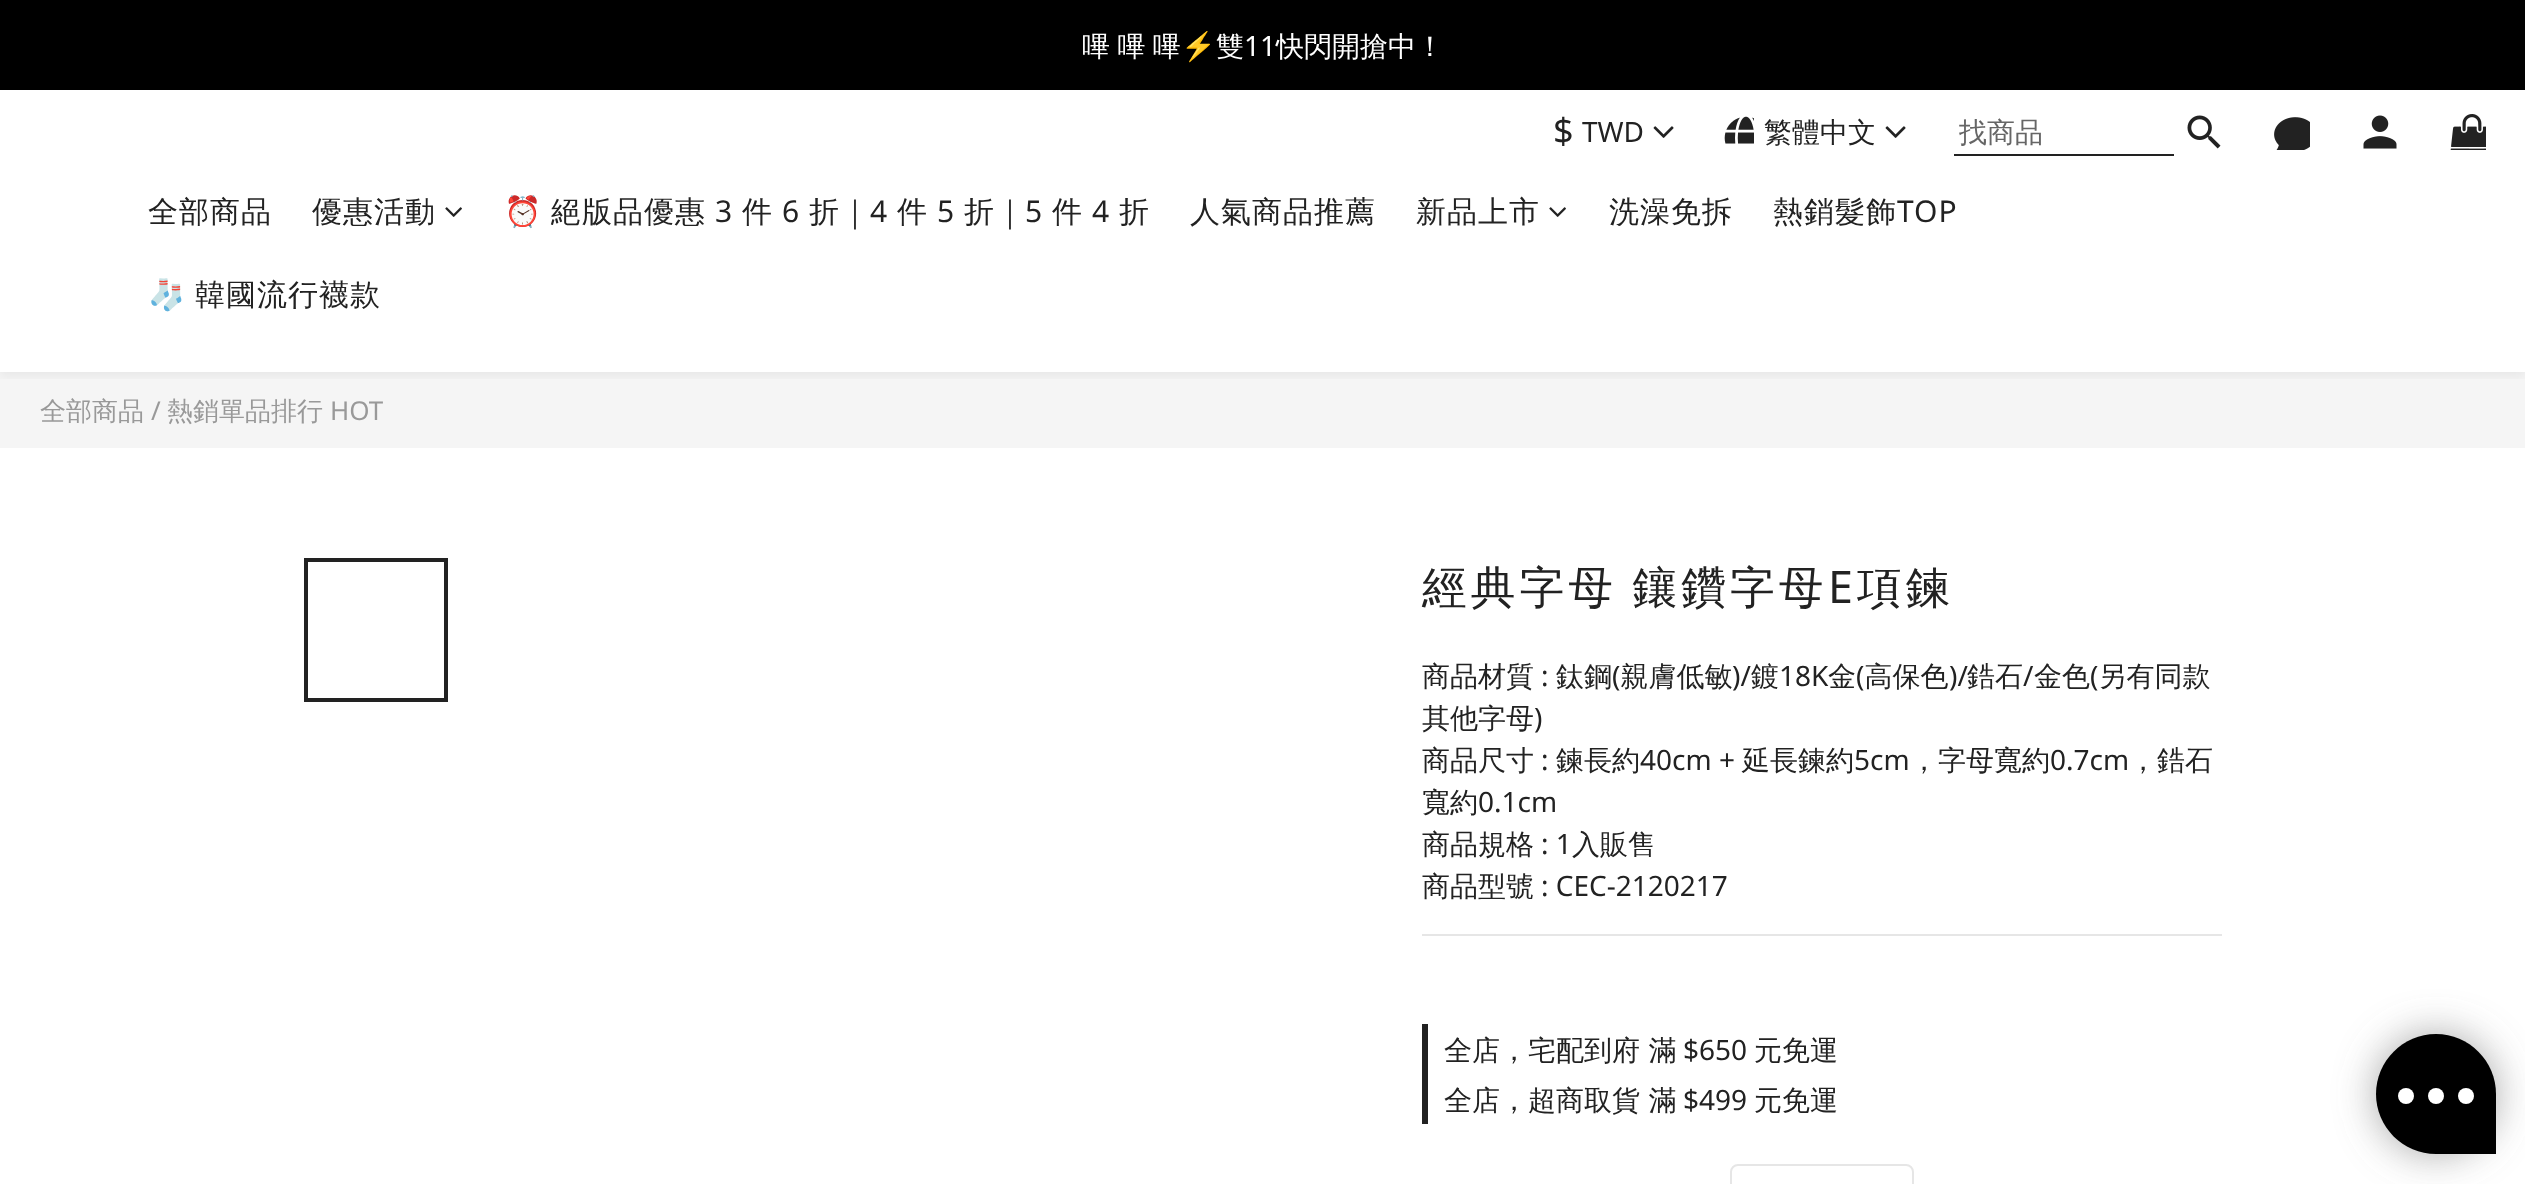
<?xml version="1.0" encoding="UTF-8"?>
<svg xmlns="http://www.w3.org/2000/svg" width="2525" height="1184">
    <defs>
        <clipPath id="clip1"><rect x="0" y="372" width="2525" height="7"/></clipPath>
        <filter id="blur1" x="-50%" y="-200%" width="200%" height="500%"><feGaussianBlur stdDeviation="6"/></filter>
        <filter id="blur2" x="-50%" y="-200%" width="200%" height="500%"><feGaussianBlur stdDeviation="20"/></filter>
    </defs>
    <rect width="100%" height="100%" fill="#FFFFFF"/>
    <rect x="0" y="0" width="2525" height="90" fill="#000000"/>
    <text x="1082" y="56" word-spacing="-1" font-family="WenQuanYi Zen Hei" font-size="28" font-weight="500" fill="#FFFFFF">嗶 嗶 嗶</text>
    <text x="1181" y="56" font-family="Noto Color Emoji" font-size="28" fill="#FFFFFF">⚡️</text>
    <text x="1216" y="56" font-family="WenQuanYi Zen Hei" font-size="28" font-weight="500" fill="#FFFFFF">雙</text>
    <text x="1244" y="56" font-family="Noto Sans" font-size="28" fill="#FFFFFF">11</text>
    <text x="1276" y="56" font-family="WenQuanYi Zen Hei" font-size="28" font-weight="500" fill="#FFFFFF">快閃開搶中！</text>
    <rect x="0" y="372" width="2525" height="76" fill="#F5F5F5"/>
    <g clip-path="url(#clip1)">
        <rect x="0" y="94" width="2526" height="282" fill="#000000" fill-opacity="0.06" filter="url(#blur1)"/>
    </g>
    <text x="1553" y="144" font-family="Noto Sans" font-size="36" letter-spacing="2" fill="#222222">$</text>
    <text x="1582" y="142" font-family="Noto Sans" font-size="28" fill="#222222">TWD</text>
    <image x="1653" y="126" width="21" height="12" href="img_01.png"/>
    <image x="1724" y="116" width="30" height="28" href="img_02.png"/>
    <text x="1764" y="142" font-family="WenQuanYi Zen Hei" font-size="28" font-weight="500" fill="#222222">繁體中文</text>
    <image x="1885" y="126" width="21" height="12" href="img_01.png"/>
    <rect x="1954" y="154" width="220" height="2" fill="#222222"/>
    <text x="1959" y="142" font-family="WenQuanYi Zen Hei" font-size="28" font-weight="500" fill="#666666">找商品</text>
    <image x="2187" y="115" width="34" height="34" href="img_03.png"/>
    <image x="2274" y="117" width="36" height="33" href="img_04.png"/>
    <image x="2363" y="115" width="34" height="34" href="img_05.png"/>
    <image x="2450" y="114" width="36" height="36" href="img_06.png"/>
    <text x="148" y="222" font-family="WenQuanYi Zen Hei" font-size="30" font-weight="500" letter-spacing="1" fill="#222222">全部商品</text>
    <text x="312" y="222" font-family="WenQuanYi Zen Hei" font-size="30" font-weight="500" letter-spacing="1" fill="#222222">優惠活動</text>
    <image x="445" y="207" width="17" height="10" href="img_07.png"/>
    <text x="504" y="222" font-family="Noto Color Emoji" font-size="30" letter-spacing="1" fill="#222222">⏰</text>
    <text x="551" y="222" font-family="WenQuanYi Zen Hei" font-size="30" font-weight="500" letter-spacing="1" fill="#222222">絕版品優惠</text>
    <text x="715" y="222" font-family="Noto Sans" font-size="30" letter-spacing="1" fill="#222222">3</text>
    <text x="742" y="222" font-family="WenQuanYi Zen Hei" font-size="30" font-weight="500" letter-spacing="1" fill="#222222">件</text>
    <text x="782" y="222" font-family="Noto Sans" font-size="30" letter-spacing="1" fill="#222222">6</text>
    <text x="809" y="222" font-family="WenQuanYi Zen Hei" font-size="30" font-weight="500" letter-spacing="1" fill="#222222">折｜</text>
    <text x="870" y="222" font-family="Noto Sans" font-size="30" letter-spacing="1" fill="#222222">4</text>
    <text x="897" y="222" font-family="WenQuanYi Zen Hei" font-size="30" font-weight="500" letter-spacing="1" fill="#222222">件</text>
    <text x="937" y="222" font-family="Noto Sans" font-size="30" letter-spacing="1" fill="#222222">5</text>
    <text x="964" y="222" font-family="WenQuanYi Zen Hei" font-size="30" font-weight="500" letter-spacing="1" fill="#222222">折｜</text>
    <text x="1025" y="222" font-family="Noto Sans" font-size="30" letter-spacing="1" fill="#222222">5</text>
    <text x="1052" y="222" font-family="WenQuanYi Zen Hei" font-size="30" font-weight="500" letter-spacing="1" fill="#222222">件</text>
    <text x="1092" y="222" font-family="Noto Sans" font-size="30" letter-spacing="1" fill="#222222">4</text>
    <text x="1119" y="222" font-family="WenQuanYi Zen Hei" font-size="30" font-weight="500" letter-spacing="1" fill="#222222">折</text>
    <text x="1190" y="222" font-family="WenQuanYi Zen Hei" font-size="30" font-weight="500" letter-spacing="1" fill="#222222">人氣商品推薦</text>
    <text x="1416" y="222" font-family="WenQuanYi Zen Hei" font-size="30" font-weight="500" letter-spacing="1" fill="#222222">新品上市</text>
    <image x="1549" y="207" width="17" height="10" href="img_07.png"/>
    <text x="1609" y="222" font-family="WenQuanYi Zen Hei" font-size="30" font-weight="500" letter-spacing="1" fill="#222222">洗澡免拆</text>
    <text x="1773" y="222" font-family="WenQuanYi Zen Hei" font-size="30" font-weight="500" letter-spacing="1" fill="#222222">熱銷髮飾</text>
    <text x="1897" y="222" font-family="Noto Sans" font-size="30" letter-spacing="1" fill="#222222">TOP</text>
    <text x="148" y="305" font-family="Noto Color Emoji" font-size="30" letter-spacing="1" fill="#222222">🧦</text>
    <text x="195" y="305" font-family="WenQuanYi Zen Hei" font-size="30" font-weight="500" letter-spacing="1" fill="#222222">韓國流行襪款</text>
    <text x="40" y="420" font-family="WenQuanYi Zen Hei" font-size="26" font-weight="500" fill="#999999">全部商品</text>
    <text x="151" y="420" font-family="Noto Sans" font-size="26" fill="#999999">/</text>
    <text x="167" y="420" font-family="WenQuanYi Zen Hei" font-size="26" font-weight="500" fill="#999999">熱銷單品排行</text>
    <text x="330" y="420" font-family="Noto Sans" font-size="26" fill="#999999">HOT</text>
    <rect x="306" y="560" width="140" height="140" fill="none" stroke="#222222" stroke-width="4"/>
    <text x="1422" y="603" word-spacing="-2" font-family="WenQuanYi Zen Hei" font-size="44.75" font-weight="500" letter-spacing="4" fill="#222222">經典字母 鑲鑽字母</text>
    <text x="1828" y="603" font-family="Noto Sans" font-size="44.75" letter-spacing="4" fill="#222222">E</text>
    <text x="1857" y="603" font-family="WenQuanYi Zen Hei" font-size="44.75" font-weight="500" letter-spacing="4" fill="#222222">項鍊</text>
    <text x="1422" y="686" font-family="WenQuanYi Zen Hei" font-size="28" font-weight="500" fill="#222222">商品材質</text>
    <text x="1556" y="686" font-family="WenQuanYi Zen Hei" font-size="28" font-weight="500" fill="#222222">鈦鋼 親膚低敏</text>
    <text x="1751" y="686" font-family="WenQuanYi Zen Hei" font-size="28" font-weight="500" fill="#222222">鍍</text>
    <text x="1779" y="686" font-family="Noto Sans" font-size="28" fill="#222222">18K</text>
    <text x="1828" y="686" font-family="WenQuanYi Zen Hei" font-size="28" font-weight="500" fill="#222222">金 高保色</text>
    <text x="1949" y="686" font-family="Noto Sans" font-size="28" fill="#222222">)/</text>
    <text x="1967" y="686" font-family="WenQuanYi Zen Hei" font-size="28" font-weight="500" fill="#222222">鋯石</text>
    <text x="2034" y="686" font-family="WenQuanYi Zen Hei" font-size="28" font-weight="500" fill="#222222">金色 另有同款</text>
    <text x="1541" y="686" font-family="Noto Sans" font-size="28" fill="#222222">:</text>
    <text x="1612" y="686" font-family="Noto Sans" font-size="28" fill="#222222">(</text>
    <text x="1732" y="686" font-family="Noto Sans" font-size="28" fill="#222222">)/</text>
    <text x="1856" y="686" font-family="Noto Sans" font-size="28" fill="#222222">(</text>
    <text x="2023" y="686" font-family="Noto Sans" font-size="28" fill="#222222">/</text>
    <text x="2090" y="686" font-family="Noto Sans" font-size="28" fill="#222222">(</text>
    <text x="1422" y="728" font-family="WenQuanYi Zen Hei" font-size="28" font-weight="500" fill="#222222">其他字母</text>
    <text x="1534" y="728" font-family="Noto Sans" font-size="28" fill="#222222">)</text>
    <text x="1422" y="770" font-family="WenQuanYi Zen Hei" font-size="28" font-weight="500" fill="#222222">商品尺寸</text>
    <text x="1541" y="770" font-family="Noto Sans" font-size="28" fill="#222222">:</text>
    <text x="1556" y="770" font-family="WenQuanYi Zen Hei" font-size="28" font-weight="500" fill="#222222">鍊長約</text>
    <text x="1640" y="770" font-family="Noto Sans" font-size="28" fill="#222222">40cm +</text>
    <text x="1742" y="770" font-family="WenQuanYi Zen Hei" font-size="28" font-weight="500" fill="#222222">延長鍊約</text>
    <text x="1854" y="770" font-family="Noto Sans" font-size="28" fill="#222222">5cm</text>
    <text x="1910" y="770" font-family="WenQuanYi Zen Hei" font-size="28" font-weight="500" fill="#222222">，字母寬約</text>
    <text x="2050" y="770" font-family="Noto Sans" font-size="28" fill="#222222">0.7cm</text>
    <text x="2129" y="770" font-family="WenQuanYi Zen Hei" font-size="28" font-weight="500" fill="#222222">，鋯石</text>
    <text x="1422" y="812" font-family="WenQuanYi Zen Hei" font-size="28" font-weight="500" fill="#222222">寬約</text>
    <text x="1478" y="812" font-family="Noto Sans" font-size="28" fill="#222222">0.1cm</text>
    <text x="1422" y="854" font-family="WenQuanYi Zen Hei" font-size="28" font-weight="500" fill="#222222">商品規格</text>
    <text x="1541" y="854" font-family="Noto Sans" font-size="28" fill="#222222">: 1</text>
    <text x="1572" y="854" font-family="WenQuanYi Zen Hei" font-size="28" font-weight="500" fill="#222222">入販售</text>
    <text x="1422" y="896" font-family="WenQuanYi Zen Hei" font-size="28" font-weight="500" fill="#222222">商品型號</text>
    <text x="1541" y="896" font-family="Noto Sans" font-size="28" fill="#222222">: CEC-2120217</text>
    <rect x="1422" y="934" width="800" height="2" fill="#E6E6E6"/>
    <rect x="1422" y="1024" width="6" height="100" fill="#222222"/>
    <text x="1444" y="1060" font-family="WenQuanYi Zen Hei" font-size="28" font-weight="500" fill="#222222">全店，宅配到府 滿</text>
    <text x="1683" y="1060" font-family="Noto Sans" font-size="28" fill="#222222">$650</text>
    <text x="1754" y="1060" font-family="WenQuanYi Zen Hei" font-size="28" font-weight="500" fill="#222222">元免運</text>
    <text x="1444" y="1110" font-family="WenQuanYi Zen Hei" font-size="28" font-weight="500" fill="#222222">全店，超商取貨 滿</text>
    <text x="1683" y="1110" font-family="Noto Sans" font-size="28" fill="#222222">$499</text>
    <text x="1754" y="1110" font-family="WenQuanYi Zen Hei" font-size="28" font-weight="500" fill="#222222">元免運</text>
    <rect x="1731" y="1165" width="182" height="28" rx="7" fill="none" stroke="#E6E6E6" stroke-width="2"/>
    <rect x="2376" y="1034" width="120" height="120" rx="60" fill="#777777" fill-opacity="0.64" filter="url(#blur2)"/>
    <path d="M 2436 1034 C 2469 1034 2496 1061 2496 1094 V 1154 H 2436 C 2403 1154 2376 1127 2376 1094 C 2376 1061 2403 1034 2436 1034 Z" fill="#000000"/>
    <circle cx="2406" cy="1096" r="8" fill="#FFFFFF"/>
    <circle cx="2436" cy="1096" r="8" fill="#FFFFFF"/>
    <circle cx="2466" cy="1096" r="8" fill="#FFFFFF"/>
</svg>
